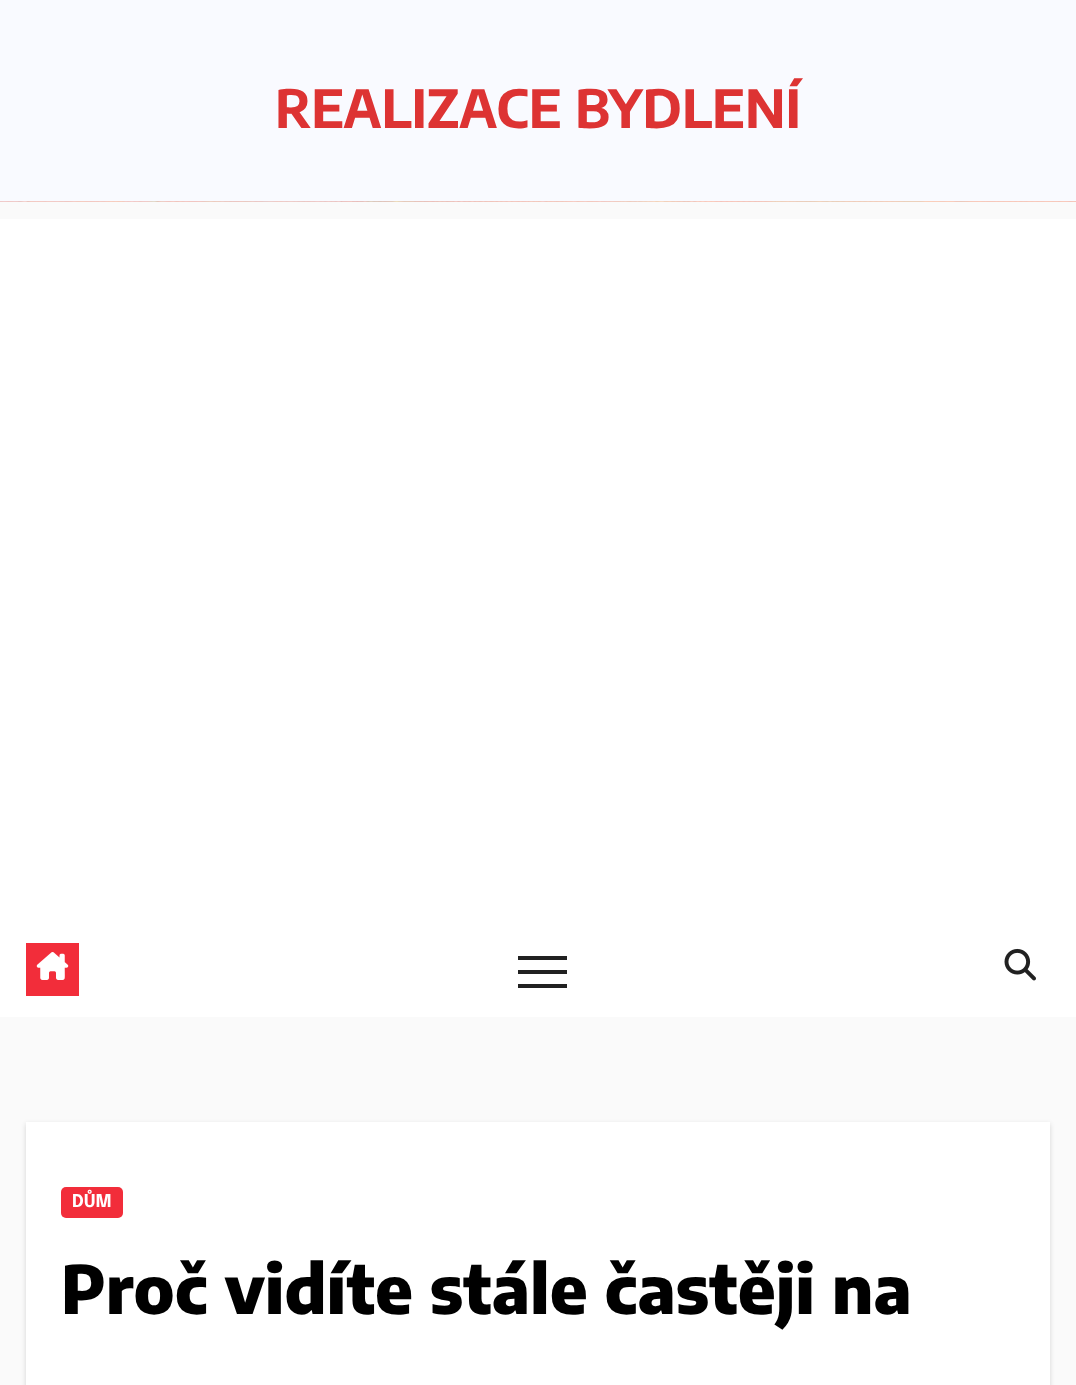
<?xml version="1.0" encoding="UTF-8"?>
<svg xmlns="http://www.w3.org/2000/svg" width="1076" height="1385">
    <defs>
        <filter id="blur1" x="-50%" y="-200%" width="200%" height="500%"><feGaussianBlur stdDeviation="2.5"/></filter>
    </defs>
    <rect width="100%" height="100%" fill="#FAFAFA"/>
    <image x="0" y="201" width="1076" height="1" href="img_01.png"/>
    <rect x="0" y="0" width="1076" height="201" fill="#F9FAFF"/>
    <text x="275" y="128" font-family="Encode Sans Condensed" font-size="52.5" font-weight="700" fill="#DD3333">REALIZACE BYDLENÍ</text>
    <rect x="0" y="219" width="1076" height="798" fill="#FFFFFF"/>
    <rect x="26" y="943" width="53" height="53" fill="#F22D3A"/>
    <image x="36" y="952" width="33" height="28" href="img_02.png"/>
    <rect x="518" y="956" width="49" height="4" fill="#212121"/>
    <rect x="518" y="970" width="49" height="4" fill="#212121"/>
    <rect x="518" y="984" width="49" height="4" fill="#212121"/>
    <image x="1004" y="948" width="32" height="33" href="img_03.png"/>
    <rect x="26" y="1124" width="1024" height="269" fill="#000000" fill-opacity="0.15" filter="url(#blur1)"/>
    <rect x="26" y="1122" width="1024" height="263" fill="#FFFFFF"/>
    <rect x="61" y="1187" width="62" height="31" rx="5" fill="#F22D3A"/>
    <text x="72" y="1207" font-family="Epilogue" font-size="17.5" font-weight="700" fill="#FFFFFF">DŮM</text>
    <text x="61" y="1314" font-family="Encode Sans Condensed" font-size="66.5" font-weight="800" fill="#000000">Proč vidíte stále častěji na</text>
</svg>
